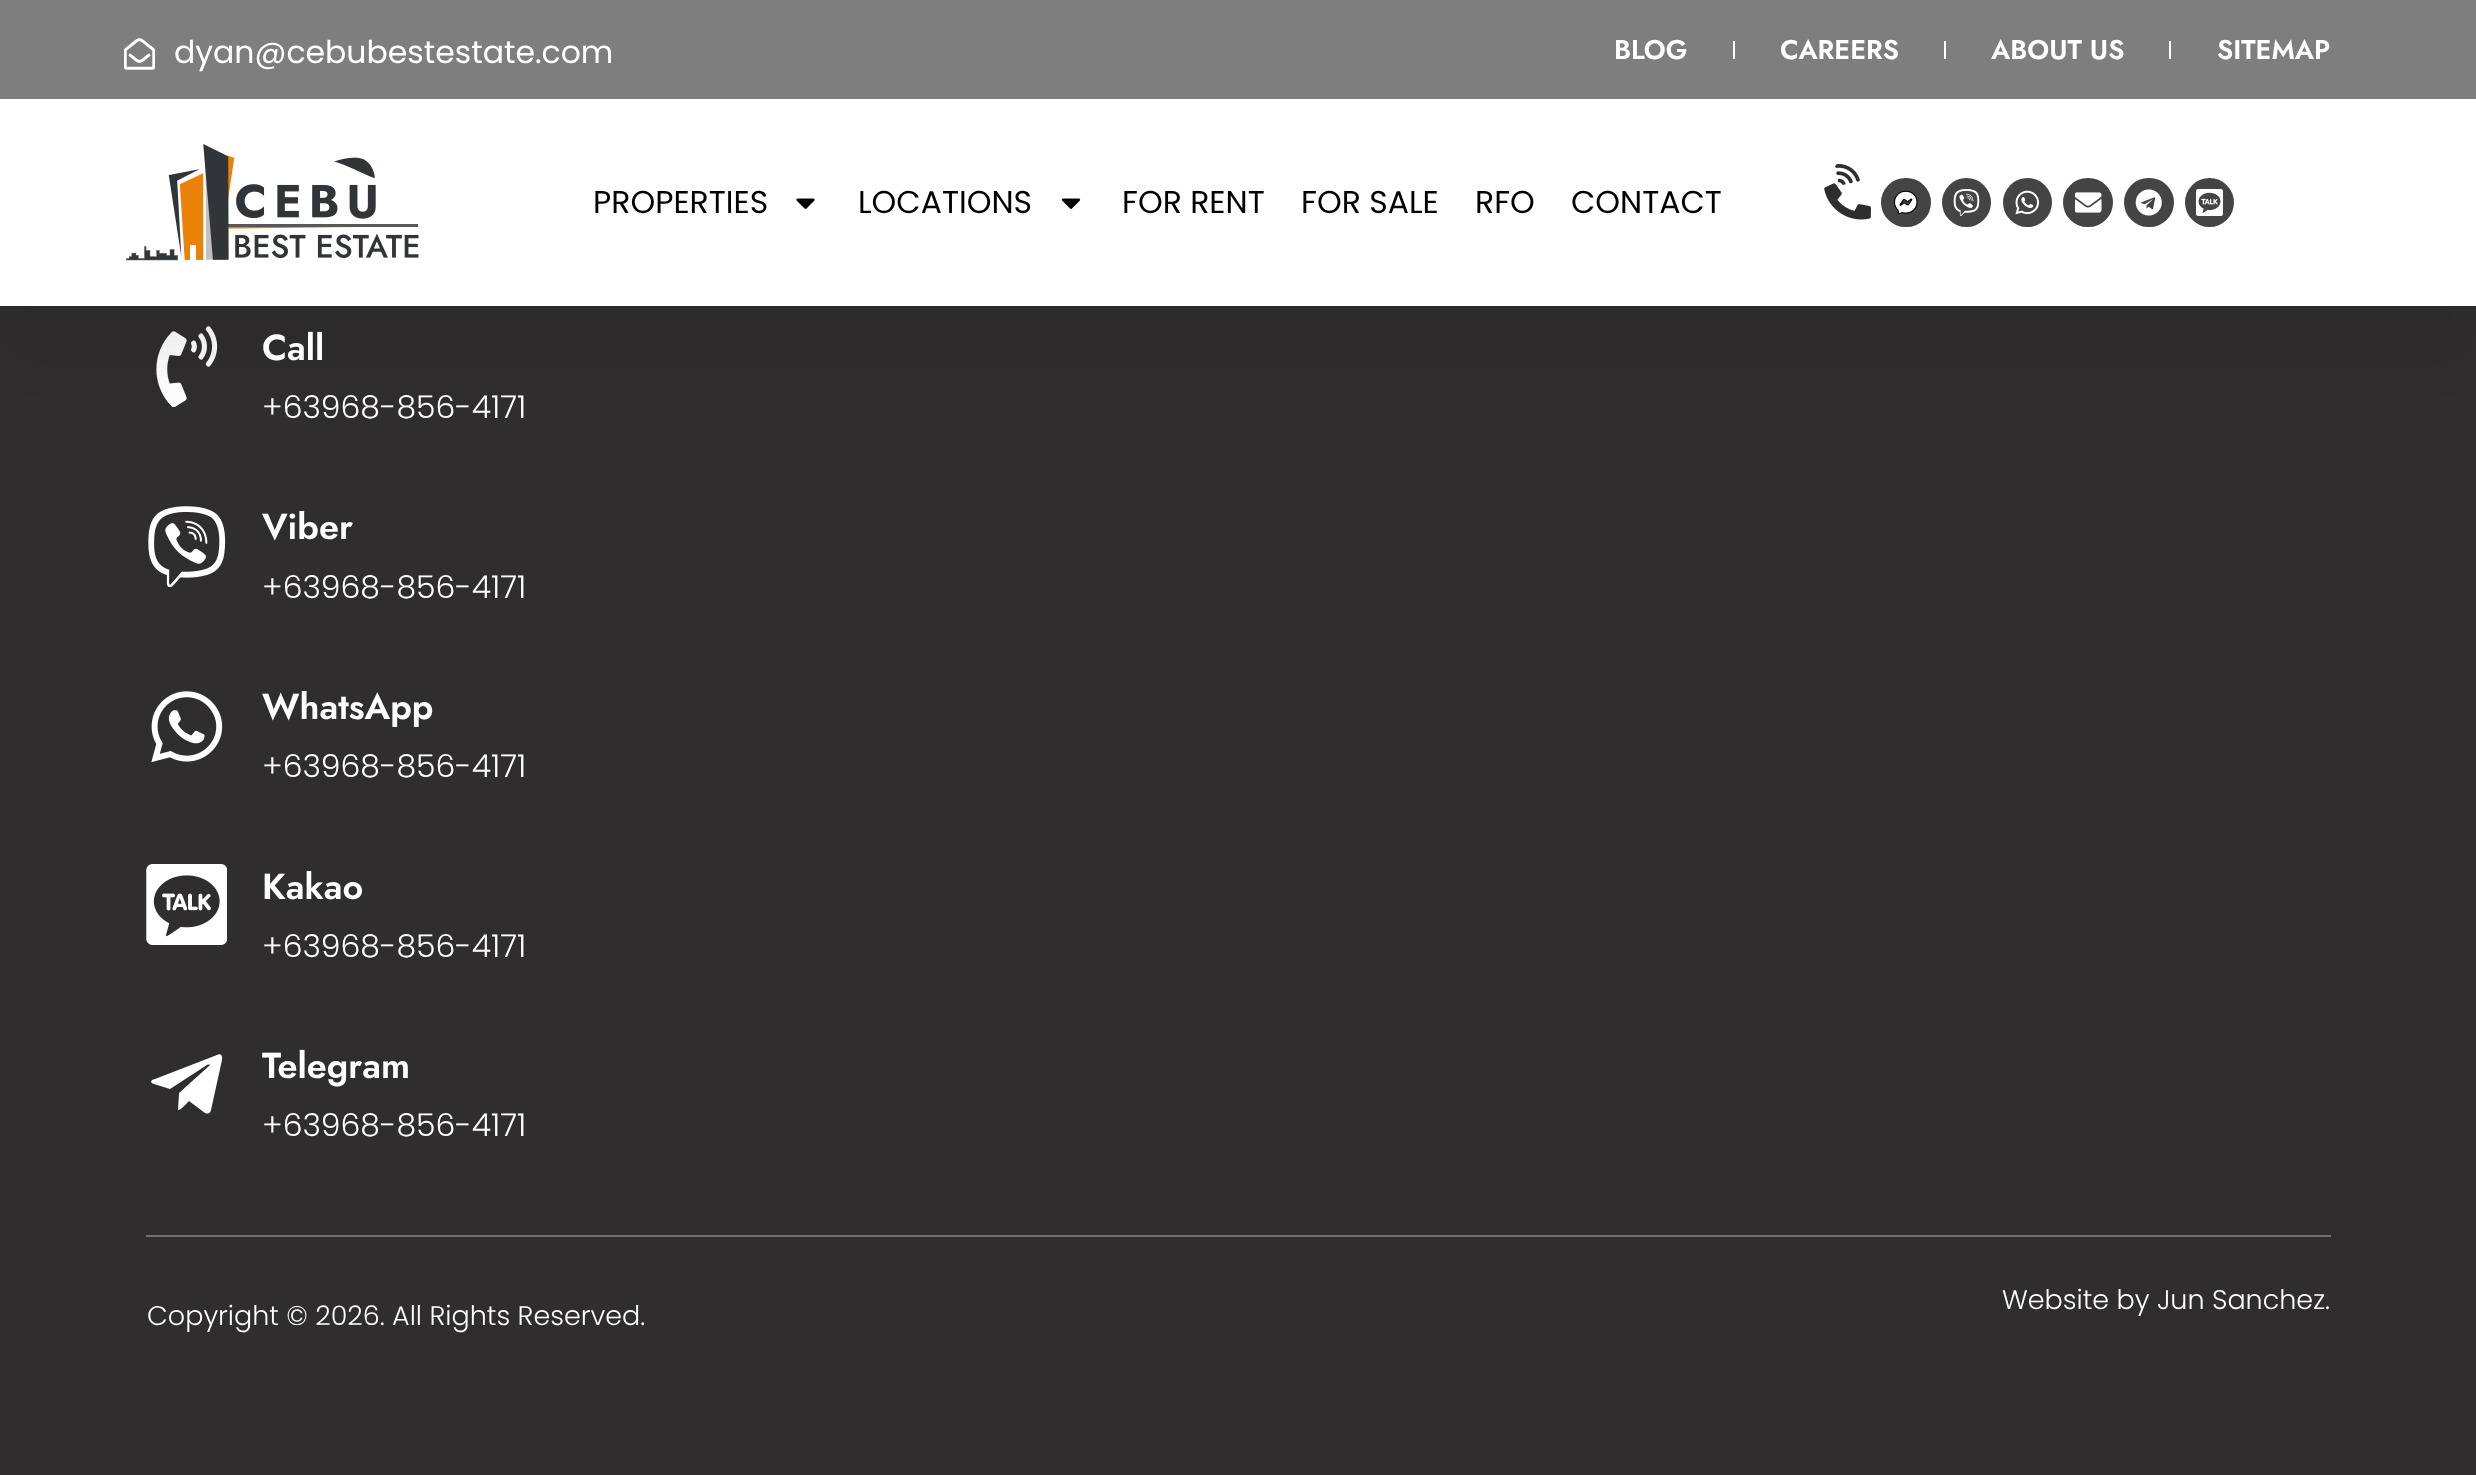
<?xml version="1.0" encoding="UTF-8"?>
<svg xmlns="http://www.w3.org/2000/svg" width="2476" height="1475">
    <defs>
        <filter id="blur1" x="-50%" y="-200%" width="200%" height="500%"><feGaussianBlur stdDeviation="34"/></filter>
    </defs>
    <rect width="100%" height="100%" fill="#302D2F"/>
    <image x="156" y="326" width="62" height="81" href="img_12.png"/>
    <rect x="0" y="56" width="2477" height="306" fill="#000000" fill-opacity="0.08" filter="url(#blur1)"/>
    <rect x="0" y="99" width="2476" height="207" fill="#FFFFFF"/>
    <rect x="0" y="0" width="2476" height="99" fill="#7E7E7E"/>
    <image x="124" y="38" width="31" height="32" href="img_01.png"/>
    <text x="174" y="63" font-family="Poppins" font-size="31.5" fill="#FFFFFF">dyan@cebubestestate.com</text>
    <text x="1614" y="59" font-family="Jost" font-size="27" font-weight="600" fill="#FFFFFF">BLOG</text>
    <rect x="1733" y="41" width="2" height="18" fill="#FFFFFF"/>
    <text x="1780" y="59" font-family="Jost" font-size="27" font-weight="600" fill="#FFFFFF">CAREERS</text>
    <rect x="1944" y="41" width="2" height="18" fill="#FFFFFF"/>
    <text x="1991" y="59" font-family="Jost" font-size="27" font-weight="600" fill="#FFFFFF">ABOUT US</text>
    <rect x="2169" y="41" width="2" height="18" fill="#FFFFFF"/>
    <text x="2217" y="59" font-family="Jost" font-size="27" font-weight="600" fill="#FFFFFF">SITEMAP</text>
    <image x="126" y="144" width="293" height="117" href="img_02.png"/>
    <text x="593" y="213" font-family="Poppins" font-size="31.5" fill="#000000">PROPERTIES</text>
    <image x="796" y="198" width="19" height="11" href="img_03.png"/>
    <text x="858" y="213" font-family="Poppins" font-size="31.5" fill="#000000">LOCATIONS</text>
    <image x="1061" y="198" width="20" height="11" href="img_04.png"/>
    <text x="1122" y="213" font-family="Poppins" font-size="31.5" fill="#000000">FOR RENT</text>
    <text x="1301" y="213" font-family="Poppins" font-size="31.5" fill="#000000">FOR SALE</text>
    <text x="1475" y="213" font-family="Poppins" font-size="31.5" fill="#000000">RFO</text>
    <text x="1571" y="213" font-family="Poppins" font-size="31.5" fill="#000000">CONTACT</text>
    <image x="1824" y="164" width="47" height="56" href="img_05.png"/>
    <rect x="1881" y="178" width="50" height="49" rx="24.5" fill="#444444"/>
    <image x="1894" y="190" width="24" height="25" href="img_06.png"/>
    <circle cx="1966.5" cy="202.5" r="24.5" fill="#444444"/>
    <image x="1953" y="189" width="27" height="27" href="img_07.png"/>
    <circle cx="2027.5" cy="202.5" r="24.5" fill="#444444"/>
    <image x="2015" y="190" width="25" height="25" href="img_08.png"/>
    <rect x="2063" y="178" width="50" height="49" rx="24.5" fill="#444444"/>
    <image x="2075" y="192" width="27" height="21" href="img_09.png"/>
    <rect x="2124" y="178" width="50" height="49" rx="24.5" fill="#444444"/>
    <image x="2135" y="189" width="27" height="27" href="img_10.png"/>
    <circle cx="2209.5" cy="202.5" r="24.5" fill="#444444"/>
    <image x="2196" y="189" width="27" height="27" href="img_11.png"/>
    <text x="262" y="360" font-family="Jost" font-size="36" font-weight="600" fill="#FFFFFF">Call</text>
    <text x="262" y="418" font-family="Poppins" font-size="31.5" font-weight="300" fill="#FFFFFF">+63968-856-4171</text>
    <image x="148" y="506" width="78" height="81" href="img_13.png"/>
    <text x="262" y="539" font-family="Jost" font-size="36" font-weight="600" fill="#FFFFFF">Viber</text>
    <text x="262" y="598" font-family="Poppins" font-size="31.5" font-weight="300" fill="#FFFFFF">+63968-856-4171</text>
    <image x="151" y="691" width="72" height="72" href="img_14.png"/>
    <text x="262" y="719" font-family="Jost" font-size="36" font-weight="600" fill="#FFFFFF">WhatsApp</text>
    <text x="262" y="777" font-family="Poppins" font-size="31.5" font-weight="300" fill="#FFFFFF">+63968-856-4171</text>
    <image x="146" y="864" width="81" height="81" href="img_15.png"/>
    <text x="262" y="899" font-family="Jost" font-size="36" font-weight="600" fill="#FFFFFF">Kakao</text>
    <text x="262" y="957" font-family="Poppins" font-size="31.5" font-weight="300" fill="#FFFFFF">+63968-856-4171</text>
    <path d="M 222 1060 L 211 1110 C 210 1114 208 1114 205 1113 L 189 1101 C 187 1103 181 1110 178 1110 L 179 1093 L 209 1066 C 211 1065 209 1064 207 1065 L 170 1089 L 154 1084 C 150 1083 150 1080 155 1079 L 217 1055 C 220 1053 223 1055 222 1060 Z" fill="#FFFFFF"/>
    <text x="262" y="1078" font-family="Jost" font-size="36" font-weight="600" fill="#FFFFFF">Telegram</text>
    <text x="262" y="1136" font-family="Poppins" font-size="31.5" font-weight="300" fill="#FFFFFF">+63968-856-4171</text>
    <rect x="146" y="1235" width="2185" height="2" fill="#6F6E6F"/>
    <text x="147" y="1325" font-family="Poppins" font-size="27" font-weight="300" fill="#FFFFFF">Copyright © 2026. All Rights Reserved.</text>
    <text x="2002" y="1309" font-family="Poppins" font-size="27" font-weight="300" fill="#FFFFFF">Website by Jun Sanchez.</text>
</svg>
